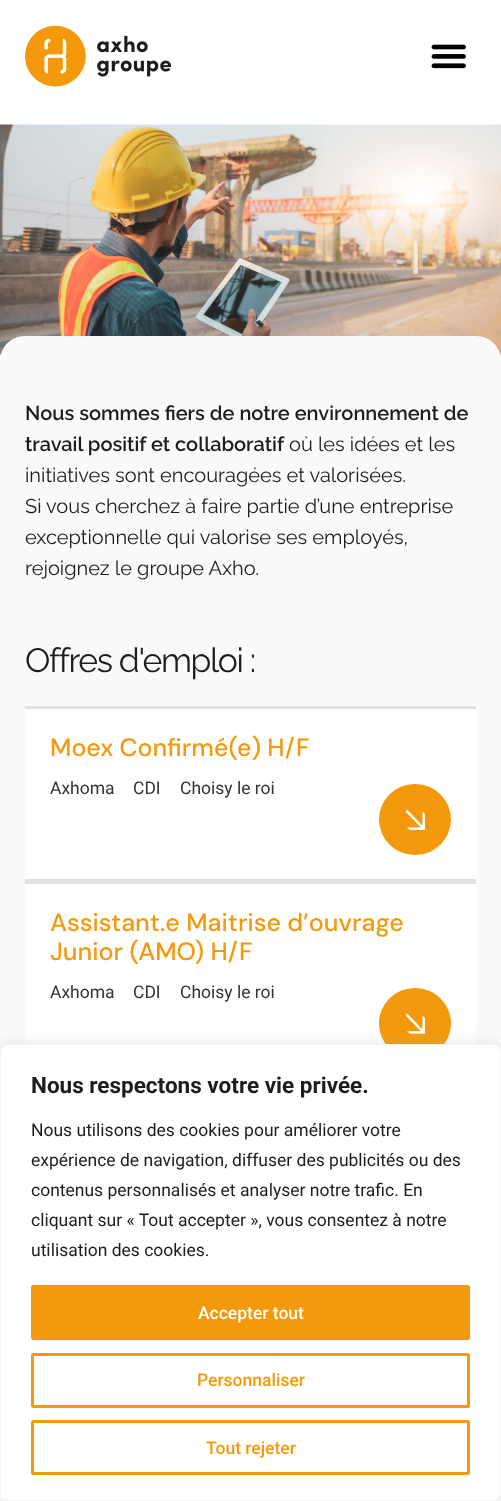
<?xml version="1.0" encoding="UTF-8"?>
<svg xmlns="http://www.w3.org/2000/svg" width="501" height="1501">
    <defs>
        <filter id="blur1" x="-50%" y="-200%" width="200%" height="500%"><feGaussianBlur stdDeviation="6"/></filter>
    </defs>
    <rect width="100%" height="100%" fill="#FFFFFF"/>
    <image x="25" y="25" width="146" height="62" href="img_01.png"/>
    <image x="431" y="44" width="35" height="25" href="img_02.png"/>
    <image x="0" y="124" width="501" height="231" href="img_03.png"/>
    <path d="M 25 336 H 476 C 490 336 501 347 501 361 V 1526 H 0 V 361 C 0 347 11 336 25 336 Z" fill="#FAFAFA"/>
    <text font-family="Raleway" font-size="20" font-weight="600" fill="#1D1E1C">
        <tspan x="25" y="420">Nous sommes fiers de notre environnement de</tspan>
        <tspan x="25" y="451">travail positif et collaboratif</tspan>
    </text>
    <text x="289" y="451" font-family="Raleway" font-size="20" fill="#1D1E1C">où les idées et les</text>
    <text font-family="Raleway" font-size="20" fill="#1D1E1C">
        <tspan x="25" y="482">initiatives sont encouragées et valorisées.</tspan>
        <tspan x="25" y="513">Si vous cherchez à faire partie d’une entreprise</tspan>
        <tspan x="25" y="544">exceptionnelle qui valorise ses employés,</tspan>
        <tspan x="25" y="575">rejoignez le groupe Axho.</tspan>
    </text>
    <text x="25" y="672" font-family="Raleway" font-size="33.75" letter-spacing="-1.4" fill="#1D1E1C">Offres d'emploi :</text>
    <rect x="25" y="879" width="451" height="2" fill="#DFDFDF"/>
    <rect x="25" y="709" width="451" height="170" fill="#FFFFFF"/>
    <rect x="25" y="706" width="451" height="3" fill="#E2E2E2"/>
    <text x="50" y="756" font-family="DM Sans" font-size="25" font-weight="500" fill="#F4990B">Moex Confirmé(e) H/F</text>
    <text x="50" y="794" font-family="Roboto" font-size="17.5" fill="#333333">Axhoma</text>
    <text x="133" y="794" font-family="Roboto" font-size="17.5" fill="#333333">CDI</text>
    <text x="180" y="794" font-family="Roboto" font-size="17.5" fill="#333333">Choisy le roi</text>
    <rect x="379" y="784" width="72" height="71" rx="35.5" fill="#F4990B"/>
    <image x="406" y="810" width="19" height="20" href="img_04.png"/>
    <rect x="25" y="884" width="451" height="160" fill="#FFFFFF"/>
    <rect x="25" y="881" width="451" height="3" fill="#E2E2E2"/>
    <text font-family="DM Sans" font-size="25" font-weight="500" fill="#F4990B">
        <tspan x="50" y="931">Assistant.e Maitrise d’ouvrage</tspan>
        <tspan x="50" y="960">Junior (AMO) H/F</tspan>
    </text>
    <text x="50" y="998" font-family="Roboto" font-size="17.5" fill="#333333">Axhoma</text>
    <text x="133" y="998" font-family="Roboto" font-size="17.5" fill="#333333">CDI</text>
    <text x="180" y="998" font-family="Roboto" font-size="17.5" fill="#333333">Choisy le roi</text>
    <rect x="379" y="988" width="72" height="71" rx="35.5" fill="#F4990B"/>
    <image x="406" y="1014" width="19" height="20" href="img_05.png"/>
    <rect x="0" y="1043" width="501" height="457" rx="8" fill="#ACABAB" fill-opacity="0.3" filter="url(#blur1)"/>
    <rect x="0.5" y="1044.5" width="500" height="456" rx="7.5" fill="#FFFFFF" stroke="#F4F4F4"/>
    <text x="31" y="1093" font-family="Roboto" font-size="22.5" font-weight="700" fill="#1D1E1C">Nous respectons votre vie privée.</text>
    <text font-family="Roboto" font-size="17.5" fill="#1D1E1C">
        <tspan x="31" y="1136">Nous utilisons des cookies pour améliorer votre</tspan>
        <tspan x="31" y="1166">expérience de navigation, diffuser des publicités ou des</tspan>
        <tspan x="31" y="1196">contenus personnalisés et analyser notre trafic. En</tspan>
        <tspan x="31" y="1226">cliquant sur « Tout accepter », vous consentez à notre</tspan>
        <tspan x="31" y="1256">utilisation des cookies.</tspan>
    </text>
    <rect x="32.5" y="1286.5" width="436" height="52" rx="1" fill="#F4990B" stroke="#F4990B" stroke-width="3"/>
    <text x="198" y="1319" font-family="Roboto" font-size="17.5" font-weight="500" fill="#FFFFFF">Accepter tout</text>
    <rect x="32.5" y="1354.5" width="436" height="52" rx="1" fill="none" stroke="#F4990B" stroke-width="3"/>
    <text x="197" y="1386" font-family="Roboto" font-size="17.5" font-weight="500" fill="#F4990B">Personnaliser</text>
    <rect x="32.5" y="1421.5" width="436" height="52" rx="1" fill="none" stroke="#F4990B" stroke-width="3"/>
    <text x="206" y="1454" font-family="Roboto" font-size="17.5" font-weight="500" fill="#F4990B">Tout rejeter</text>
</svg>
